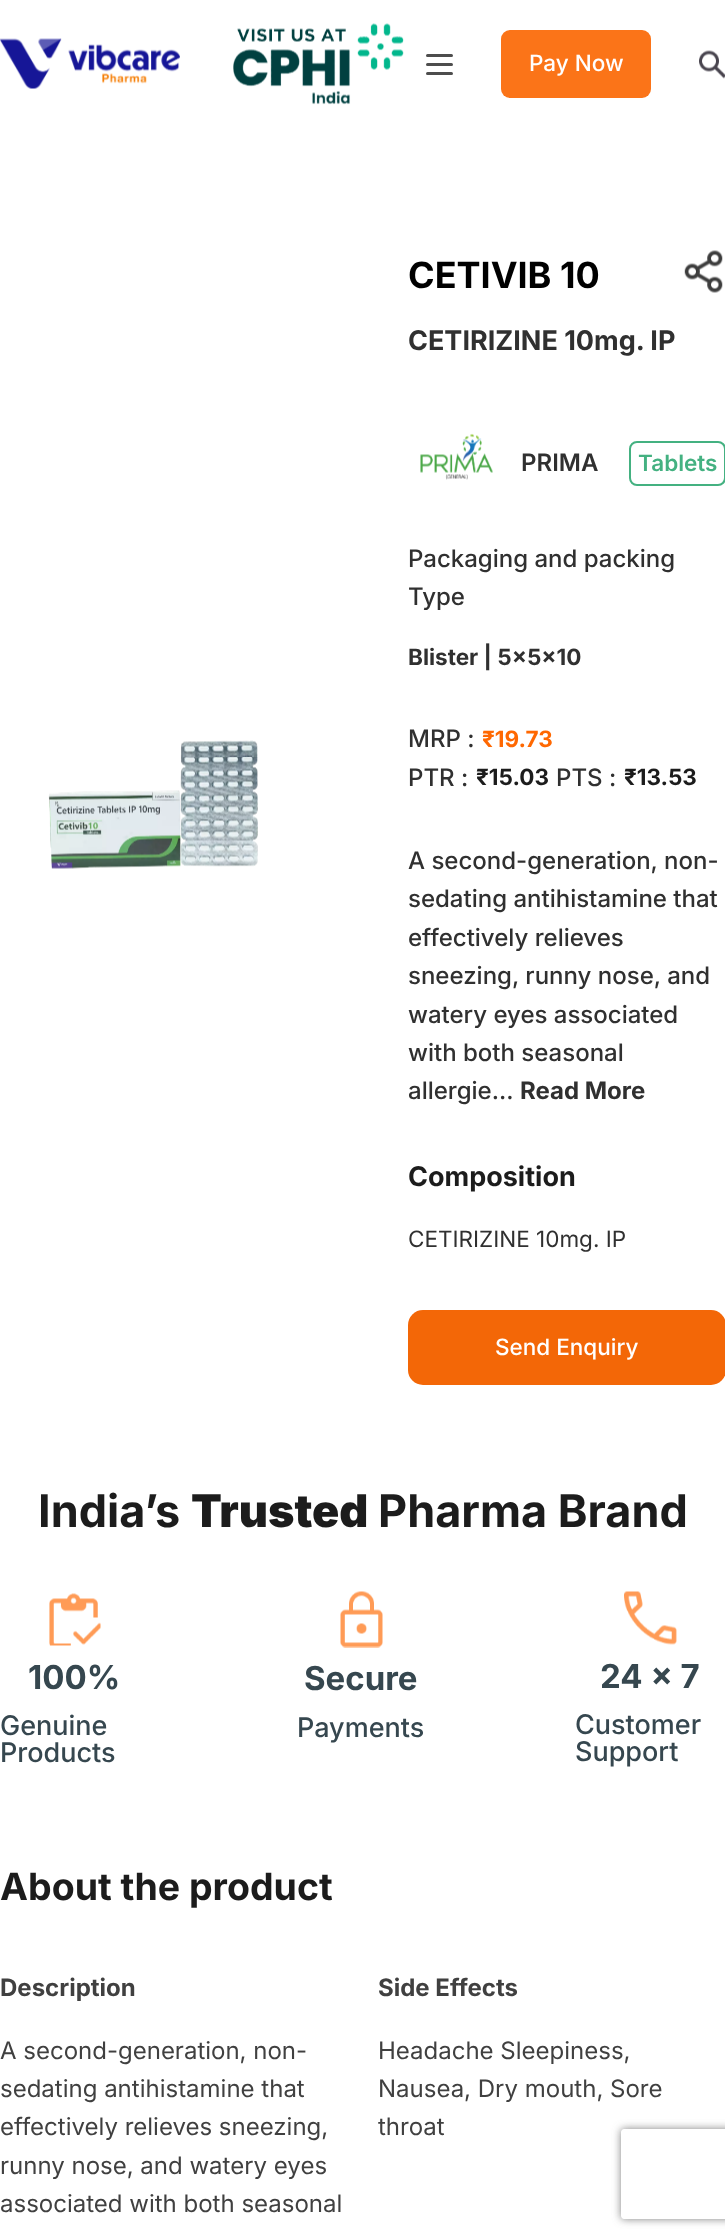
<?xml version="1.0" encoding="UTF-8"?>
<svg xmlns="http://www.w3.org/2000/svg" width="725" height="2239">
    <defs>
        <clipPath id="clip1"><path d="M 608 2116 H 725 V 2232 H 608 Z M 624 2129 H 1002 C 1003.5 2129 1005 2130.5 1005 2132 V 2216 C 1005 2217.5 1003.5 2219 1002 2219 H 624 C 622.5 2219 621 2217.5 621 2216 V 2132 C 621 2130.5 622.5 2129 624 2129 Z" clip-rule="evenodd"/></clipPath>
        <filter id="blur1" x="-50%" y="-200%" width="200%" height="500%"><feGaussianBlur stdDeviation="4"/></filter>
    </defs>
    <rect width="100%" height="100%" fill="#FFFFFF"/>
    <image x="0" y="38" width="180" height="51" href="img_01.png"/>
    <image x="233" y="23" width="171" height="82" href="img_02.png"/>
    <rect x="426" y="54" width="27" height="3" rx="1.5" fill="#4D4D4D"/>
    <rect x="426" y="63" width="27" height="3" rx="1.5" fill="#4D4D4D"/>
    <rect x="426" y="72" width="27" height="3" rx="1.5" fill="#4D4D4D"/>
    <rect x="501" y="30" width="150" height="68" rx="9" fill="#FB7418"/>
    <text x="529" y="71" font-family="Inter" font-size="22.5" font-weight="500" fill="#FFFFFF">Pay Now</text>
    <image x="699" y="50" width="26" height="29" href="img_03.png"/>
    <image x="48" y="740" width="210" height="129" href="img_04.png"/>
    <text x="408" y="288" font-family="Inter" font-size="36" font-weight="700" fill="#000000">CETIVIB 10</text>
    <image x="684" y="250" width="39" height="43" href="img_05.png"/>
    <text x="408" y="350" font-family="Inter" font-size="27" font-weight="700" fill="#303030">CETIRIZINE 10mg. IP</text>
    <image x="420" y="433" width="73" height="47" href="img_06.png"/>
    <text x="521" y="471" font-family="Inter" font-size="24" font-weight="600" fill="#303030">PRIMA</text>
    <rect x="630" y="442" width="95" height="43" rx="7" fill="none" stroke="#44B181" stroke-width="2"/>
    <text x="638" y="471" font-family="Inter" font-size="22.5" font-weight="600" fill="#44B181">Tablets</text>
    <text font-family="Inter" font-size="24" font-weight="500" fill="#303030">
        <tspan x="408" y="567">Packaging and packing</tspan>
        <tspan x="408" y="605">Type</tspan>
    </text>
    <text x="408" y="665" font-family="Inter" font-size="22.5" font-weight="700" fill="#303030">Blister | 5x5x10</text>
    <text x="408" y="747" font-family="Inter" font-size="24" font-weight="500" fill="#303030">MRP :</text>
    <text x="482" y="747" font-family="Inter" font-size="22.5" font-weight="700" fill="#FF6801">₹19.73</text>
    <text x="408" y="786" font-family="Inter" font-size="24" font-weight="500" fill="#303030">PTR :</text>
    <text x="476" y="785" font-family="Inter" font-size="22.5" font-weight="700" fill="#1C1C1C">₹15.03</text>
    <text x="556" y="786" font-family="Inter" font-size="24" font-weight="500" fill="#303030">PTS :</text>
    <text x="624" y="785" font-family="Inter" font-size="22.5" font-weight="700" fill="#1C1C1C">₹13.53</text>
    <text font-family="Inter" font-size="24" font-weight="500" fill="#303030">
        <tspan x="408" y="869">A second-generation, non-</tspan>
        <tspan x="408" y="907">sedating antihistamine that</tspan>
        <tspan x="408" y="946">effectively relieves</tspan>
        <tspan x="408" y="984">sneezing, runny nose, and</tspan>
        <tspan x="408" y="1023">watery eyes associated</tspan>
        <tspan x="408" y="1061">with both seasonal</tspan>
        <tspan x="408" y="1099">allergie...</tspan>
    </text>
    <text x="520" y="1099" font-family="Inter" font-size="24" font-weight="700" fill="#303030">Read More</text>
    <text x="408" y="1186" font-family="Inter" font-size="27" font-weight="700" fill="#1C1C1C">Composition</text>
    <text x="408" y="1247" font-family="Inter" font-size="22.5" fill="#303030">CETIRIZINE 10mg. IP</text>
    <rect x="408" y="1310" width="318" height="75" rx="15" fill="#F36707"/>
    <text x="495" y="1355" font-family="Inter" font-size="22.5" font-weight="500" fill="#FFFFFF">Send Enquiry</text>
    <text x="38" y="1527" font-family="Inter" font-size="45" font-weight="700" fill="#1C1C1C">India’s</text>
    <text x="191" y="1527" font-family="Inter" font-size="45" font-weight="900" fill="#1C1C1C">Trusted</text>
    <text x="378" y="1527" font-family="Inter" font-size="45" font-weight="700" fill="#1C1C1C">Pharma Brand</text>
    <image x="49" y="1593" width="52" height="53" href="img_07.png"/>
    <text x="28" y="1689" font-family="Inter" font-size="33" font-weight="700" fill="#36474F">100%</text>
    <text font-family="Inter" font-size="27" font-weight="500" fill="#36474F">
        <tspan x="0" y="1735">Genuine</tspan>
        <tspan x="0" y="1762">Products</tspan>
    </text>
    <image x="340" y="1591" width="43" height="57" href="img_08.png"/>
    <text x="304" y="1690" font-family="Inter" font-size="33" font-weight="700" fill="#36474F">Secure</text>
    <text x="297" y="1737" font-family="Inter" font-size="27" font-weight="500" fill="#36474F">Payments</text>
    <image x="624" y="1591" width="53" height="54" href="img_09.png"/>
    <text x="600" y="1688" font-family="Inter" font-size="33" font-weight="700" fill="#36474F">24 x 7</text>
    <text font-family="Inter" font-size="27" font-weight="500" fill="#36474F">
        <tspan x="575" y="1734">Customer</tspan>
        <tspan x="575" y="1761">Support</tspan>
    </text>
    <text x="0" y="1900" font-family="Inter" font-size="37.5" font-weight="700" fill="#1C1C1C">About the product</text>
    <text x="0" y="1996" font-family="Inter" font-size="24" font-weight="700" fill="#404040">Description</text>
    <text font-family="Inter" font-size="24" fill="#404040">
        <tspan x="0" y="2059">A second-generation, non-</tspan>
        <tspan x="0" y="2097">sedating antihistamine that</tspan>
        <tspan x="0" y="2135">effectively relieves sneezing,</tspan>
        <tspan x="0" y="2174">runny nose, and watery eyes</tspan>
        <tspan x="0" y="2212">associated with both seasonal</tspan>
    </text>
    <text x="378" y="1996" font-family="Inter" font-size="24" font-weight="700" fill="#404040">Side Effects</text>
    <text font-family="Inter" font-size="24" fill="#404040">
        <tspan x="378" y="2059">Headache Sleepiness,</tspan>
        <tspan x="378" y="2097">Nausea, Dry mouth, Sore</tspan>
        <tspan x="378" y="2135">throat</tspan>
    </text>
    <g clip-path="url(#clip1)">
        <rect x="621" y="2129" width="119" height="90" rx="3" fill="#808080" filter="url(#blur1)"/>
    </g>
</svg>
